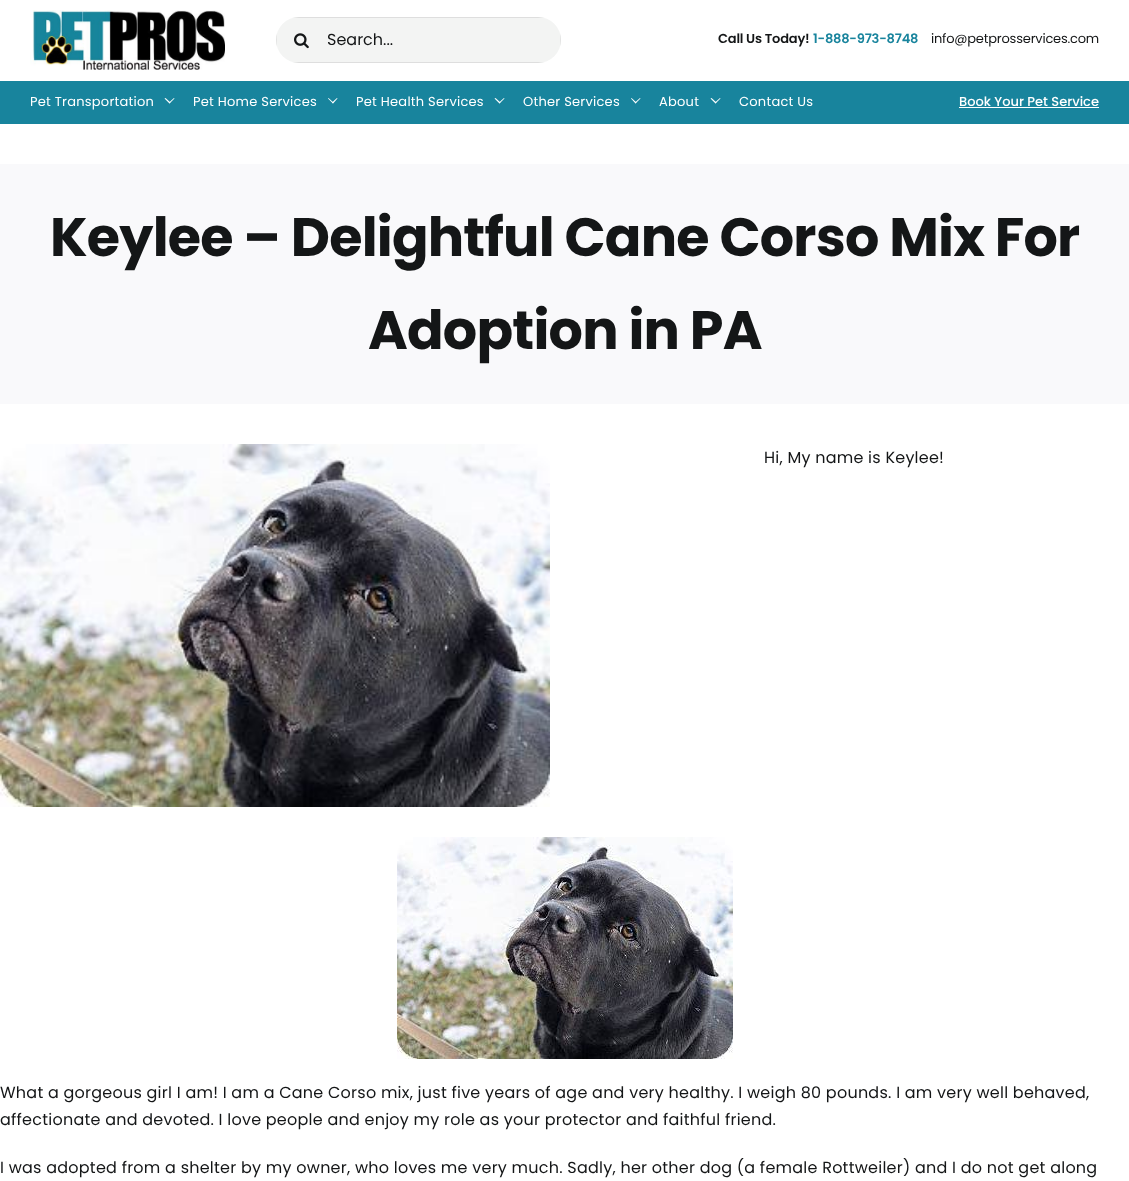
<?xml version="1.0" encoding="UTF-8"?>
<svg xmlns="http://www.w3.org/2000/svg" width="1129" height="1181">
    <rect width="100%" height="100%" fill="#FFFFFF"/>
    <image x="30" y="10" width="195" height="60" href="img_01.png"/>
    <rect x="276" y="17" width="285" height="46" rx="23" fill="#F3F4F3"/>
    <path d="M 299 63 H 538 L 545 62 H 292 Z M 277 47 C 276 42 276 38 277 33 Z M 299 17 L 292 18 H 545 L 538 17 Z M 560 33 V 47 C 561 42 561 38 560 33 Z" fill="#CCCCCC" fill-opacity="0.55" fill-rule="evenodd"/>
    <image x="294" y="33" width="15" height="16" href="img_02.png"/>
    <text x="327" y="45" font-family="Poppins" font-size="16" fill="#141617">Search...</text>
    <text x="718" y="43" font-family="Poppins" font-size="13" font-weight="600" letter-spacing="-0.2" fill="#141617">Call Us Today!</text>
    <text x="813" y="43" font-family="Poppins" font-size="13" font-weight="600" letter-spacing="-0.2" fill="#18849D">1-888-973-8748</text>
    <text x="931" y="43" font-family="Poppins" font-size="13" letter-spacing="-0.2" fill="#141617">info@petprosservices.com</text>
    <rect x="0" y="81" width="1129" height="43" fill="#18849D"/>
    <text x="30" y="106" font-family="Poppins" font-size="13" letter-spacing="0.25" fill="#FFFFFF">Pet Transportation</text>
    <path d="M 169 102.5 L 174 98 L 174.5 98.5 L 169.5 103.5 Z" fill="#FFFFFF"/>
    <path d="M 164.5 98.5 L 165.5 98 L 170.5 102.5 L 169.5 103.5 Z" fill="#FFFFFF"/>
    <text x="193" y="106" font-family="Poppins" font-size="13" letter-spacing="0.25" fill="#FFFFFF">Pet Home Services</text>
    <path d="M 332 102.5 L 337 98 L 337.5 98.5 L 333 103.5 Z" fill="#FFFFFF"/>
    <path d="M 328 98.5 L 328.5 98 L 333.5 102.5 L 333 103.5 Z" fill="#FFFFFF"/>
    <text x="356" y="106" font-family="Poppins" font-size="13" letter-spacing="0.25" fill="#FFFFFF">Pet Health Services</text>
    <path d="M 499 102.5 L 504 98 L 504.5 98.5 L 499.5 103.5 Z" fill="#FFFFFF"/>
    <path d="M 494.5 98.5 L 495.5 98 L 500.5 102.5 L 499.5 103.5 Z" fill="#FFFFFF"/>
    <text x="523" y="106" font-family="Poppins" font-size="13" letter-spacing="0.25" fill="#FFFFFF">Other Services</text>
    <path d="M 635 102.5 L 640 98 L 640.5 98.5 L 635.5 103.5 Z" fill="#FFFFFF"/>
    <path d="M 631 98.5 L 631.5 98 L 636.5 102.5 L 635.5 103.5 Z" fill="#FFFFFF"/>
    <text x="659" y="106" font-family="Poppins" font-size="13" letter-spacing="0.25" fill="#FFFFFF">About</text>
    <path d="M 715 102.5 L 720 98 L 720.5 98.5 L 715.5 103.5 Z" fill="#FFFFFF"/>
    <path d="M 710.5 98.5 L 711.5 98 L 716.5 102.5 L 715.5 103.5 Z" fill="#FFFFFF"/>
    <text x="739" y="106" font-family="Poppins" font-size="13" letter-spacing="0.25" fill="#FFFFFF">Contact Us</text>
    <text x="959" y="106" font-family="Poppins" font-size="13" font-weight="500" fill="#FFFFFF">Book Your Pet Service</text>
    <rect x="959" y="107" width="140" height="1" fill="#FFFFFF"/>
    <rect x="0" y="164" width="1129" height="240" fill="#F9F9FB"/>
    <text x="50" y="256" font-family="Poppins" font-size="54" font-weight="700" letter-spacing="-0.8" fill="#141617">Keylee – Delightful Cane Corso Mix For</text>
    <text x="368" y="349" font-family="Poppins" font-size="54" font-weight="700" letter-spacing="-0.8" fill="#141617">Adoption in PA</text>
    <image x="0" y="444" width="550" height="363" href="img_03.png"/>
    <text x="764" y="463" font-family="Poppins" font-size="16" letter-spacing="0.24" fill="#141617">Hi, My name is Keylee!</text>
    <image x="397" y="837" width="336" height="222" href="img_04.png"/>
    <text font-family="Poppins" font-size="16" letter-spacing="0.24" fill="#141617">
        <tspan x="0" y="1098">What a gorgeous girl I am! I am a Cane Corso mix, just five years of age and very healthy. I weigh 80 pounds. I am very well behaved,</tspan>
        <tspan x="0" y="1125">affectionate and devoted. I love people and enjoy my role as your protector and faithful friend.</tspan>
    </text>
    <text x="0" y="1173" font-family="Poppins" font-size="16" letter-spacing="0.24" fill="#141617">I was adopted from a shelter by my owner, who loves me very much. Sadly, her other dog (a female Rottweiler) and I do not get along</text>
</svg>
